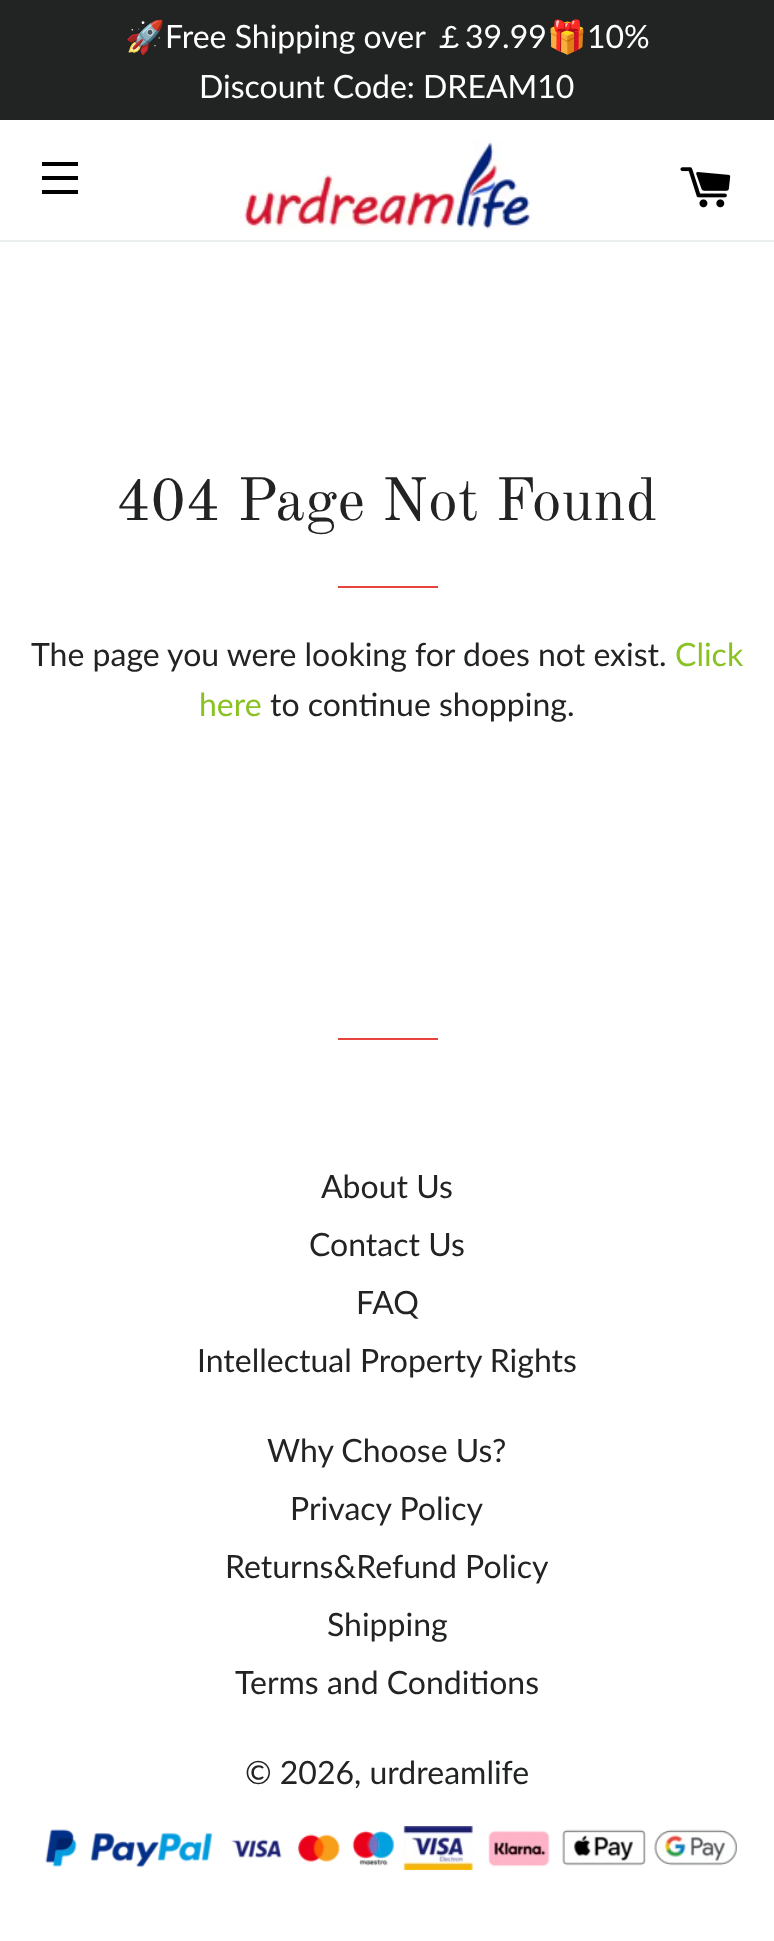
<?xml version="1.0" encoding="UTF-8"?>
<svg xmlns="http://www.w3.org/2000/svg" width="774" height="1941">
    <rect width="100%" height="100%" fill="#FFFFFF"/>
    <rect x="0" y="0" width="774" height="120" fill="#222323"/>
    <text x="125" y="48" font-family="Noto Color Emoji" font-size="32" fill="#FFFFFF">🚀</text>
    <text x="165" y="48" font-family="Lato" font-size="32" fill="#FFFFFF">Free Shipping over</text>
    <text x="433" y="48" font-family="WenQuanYi Zen Hei" font-size="32" font-weight="500" fill="#FFFFFF">￡</text>
    <text x="465" y="48" font-family="Lato" font-size="32" fill="#FFFFFF">39.99</text>
    <text x="547" y="48" font-family="Noto Color Emoji" font-size="32" fill="#FFFFFF">🎁</text>
    <text x="587" y="48" font-family="Lato" font-size="32" fill="#FFFFFF">10%</text>
    <text x="199" y="98" font-family="Lato" font-size="32" fill="#FFFFFF">Discount Code: DREAM10</text>
    <rect x="42" y="162" width="36" height="4" fill="#000000"/>
    <rect x="42" y="176" width="36" height="4" fill="#000000"/>
    <rect x="42" y="190" width="36" height="4" fill="#000000"/>
    <image x="240" y="140" width="292" height="90" href="img_01.png"/>
    <image x="680" y="167" width="51" height="41" href="img_02.png"/>
    <rect x="0" y="240" width="774" height="2" fill="#ECEFEF"/>
    <text x="116" y="520" font-family="Old Standard TT" font-size="60" fill="#222323">404 Page Not Found</text>
    <rect x="338" y="586" width="100" height="2" fill="#E8443B"/>
    <text x="31" y="666" font-family="Lato" font-size="32" fill="#222323">The page you were looking for does not exist.</text>
    <text x="675" y="666" font-family="Lato" font-size="32" fill="#8AC223">Click</text>
    <text x="199" y="716" font-family="Lato" font-size="32" fill="#8AC223">here</text>
    <text x="270" y="716" font-family="Lato" font-size="32" fill="#222323">to continue shopping.</text>
    <rect x="338" y="1038" width="100" height="2" fill="#E8443B"/>
    <text x="321" y="1198" font-family="Lato" font-size="32" fill="#222323">About Us</text>
    <text x="309" y="1256" font-family="Lato" font-size="32" fill="#222323">Contact Us</text>
    <text x="356" y="1314" font-family="Lato" font-size="32" fill="#222323">FAQ</text>
    <text x="197" y="1372" font-family="Lato" font-size="32" fill="#222323">Intellectual Property Rights</text>
    <text x="267" y="1462" font-family="Lato" font-size="32" fill="#222323">Why Choose Us?</text>
    <text x="290" y="1520" font-family="Lato" font-size="32" fill="#222323">Privacy Policy</text>
    <text x="225" y="1578" font-family="Lato" font-size="32" fill="#222323">Returns&amp;Refund Policy</text>
    <text x="327" y="1636" font-family="Lato" font-size="32" fill="#222323">Shipping</text>
    <text x="235" y="1694" font-family="Lato" font-size="32" fill="#222323">Terms and Conditions</text>
    <text x="245" y="1784" font-family="Lato" font-size="32" fill="#222323">© 2026, urdreamlife</text>
    <image x="45" y="1826" width="692" height="44" href="img_03.png"/>
</svg>
